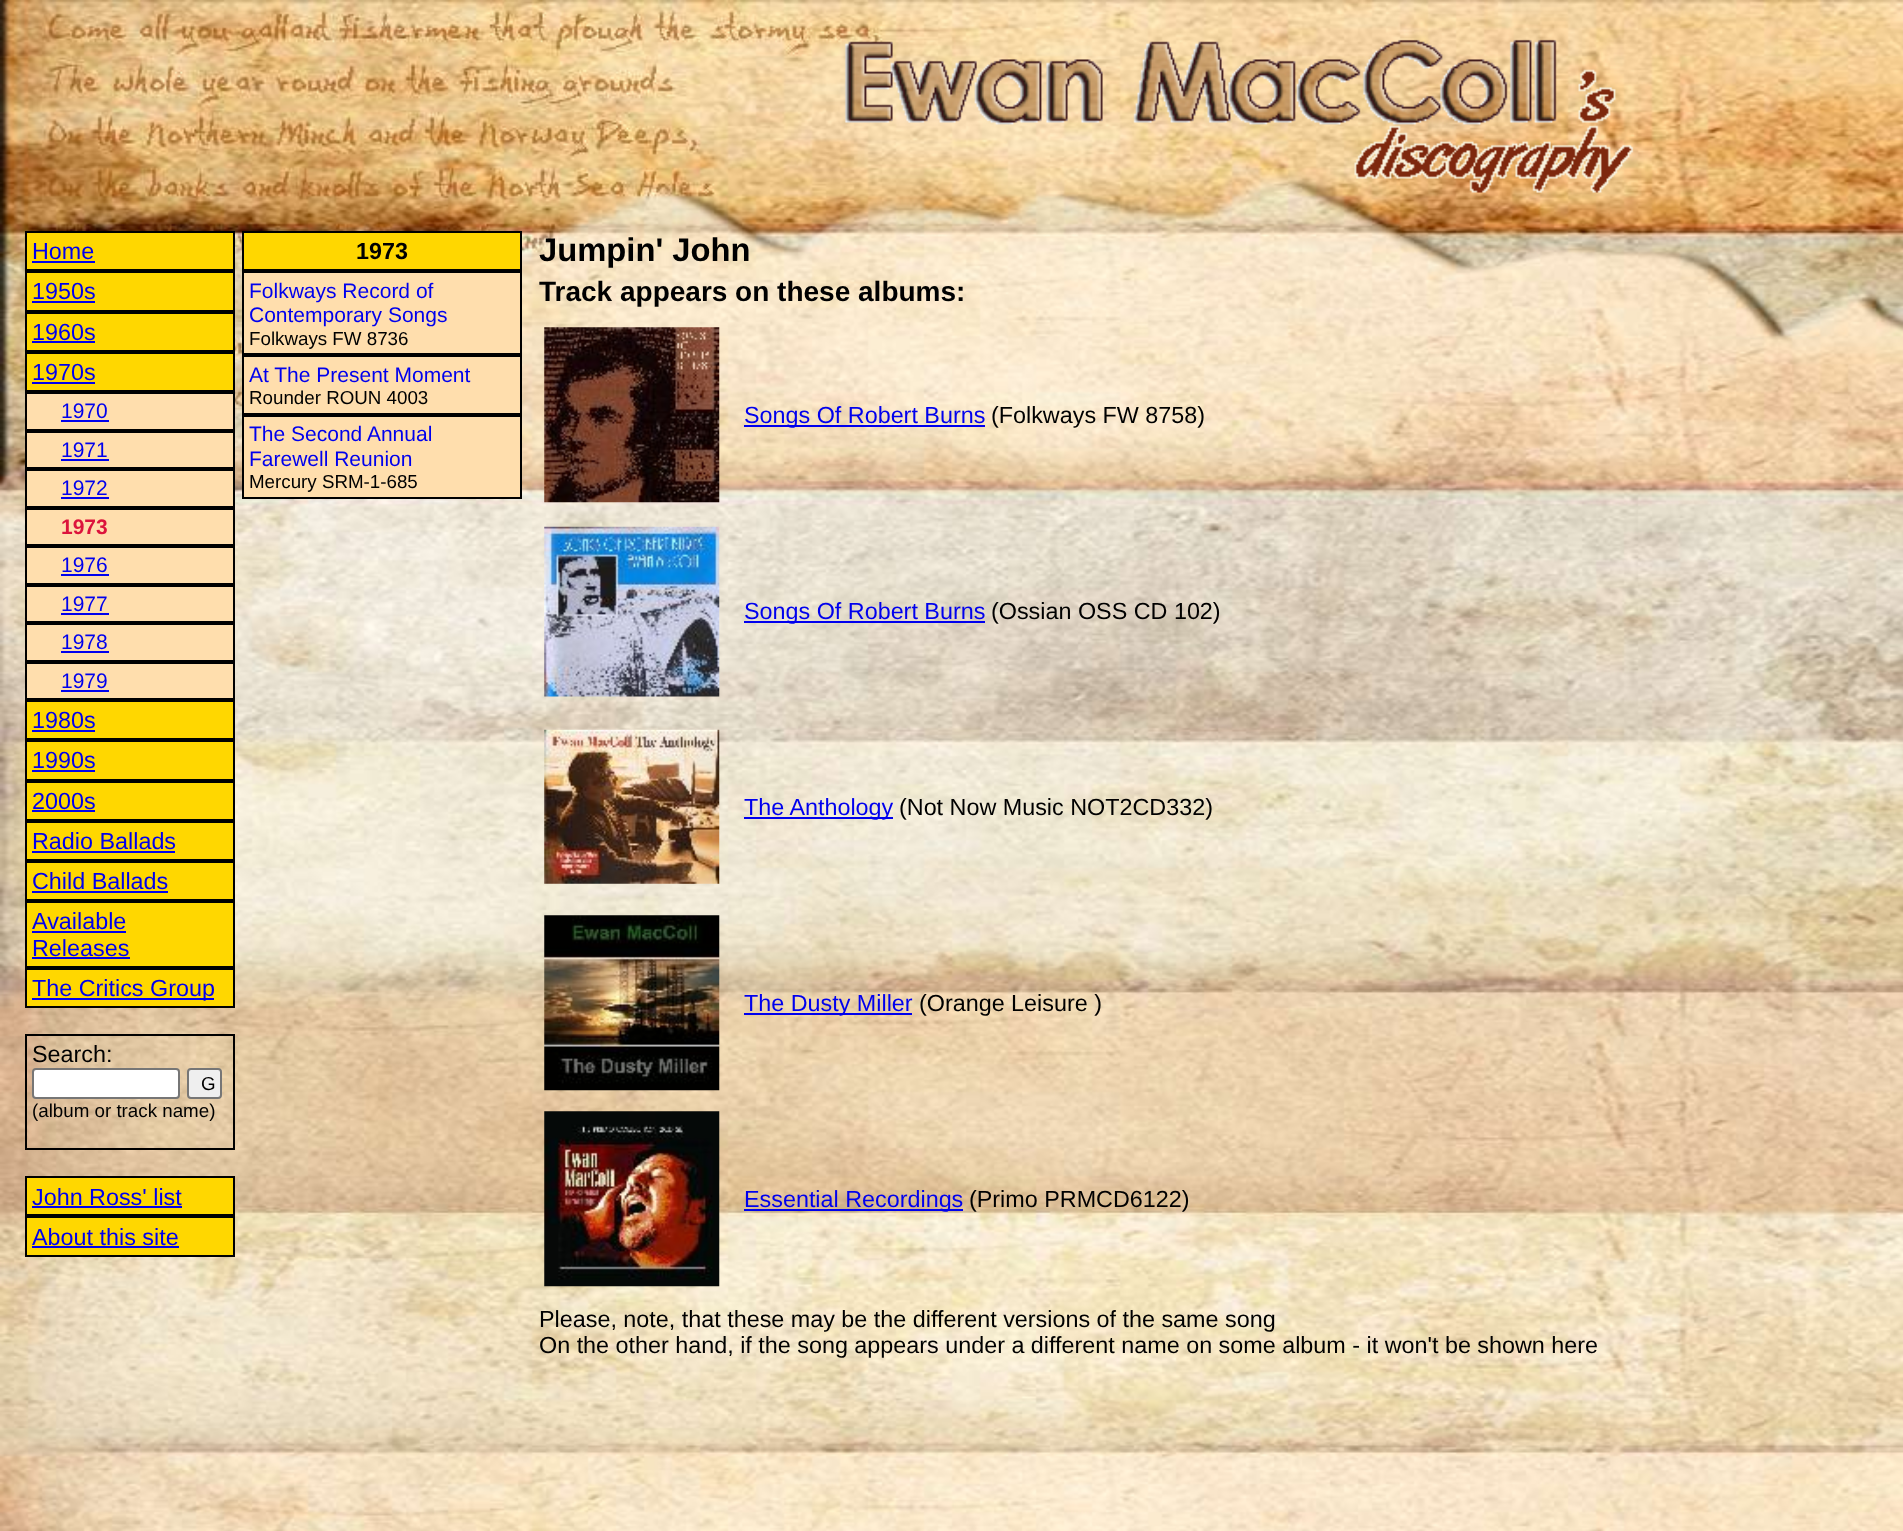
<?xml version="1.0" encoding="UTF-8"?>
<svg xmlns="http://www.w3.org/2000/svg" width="1903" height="1531">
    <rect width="100%" height="100%" fill="#FFFFFF"/>
    <image x="0" y="0" width="1903" height="1531" href="img_01.png"/>
    <image x="844" y="39" width="790" height="154" href="img_02.png"/>
    <rect x="26" y="232" width="208" height="38" fill="#FFD700" stroke="#000000" stroke-width="2"/>
    <text x="32" y="259" font-family="Liberation Sans" font-size="23.35" fill="#0000EE">Home</text>
    <rect x="32" y="261" width="63" height="2" fill="#0000EE"/>
    <rect x="26" y="272" width="208" height="39" fill="#FFD700" stroke="#000000" stroke-width="2"/>
    <text x="32" y="299" font-family="Liberation Sans" font-size="23.35" fill="#0000EE">1950s</text>
    <rect x="32" y="301" width="63" height="2" fill="#0000EE"/>
    <rect x="26" y="313" width="208" height="38" fill="#FFD700" stroke="#000000" stroke-width="2"/>
    <text x="32" y="340" font-family="Liberation Sans" font-size="23.35" fill="#0000EE">1960s</text>
    <rect x="32" y="341" width="63" height="2" fill="#0000EE"/>
    <rect x="26" y="353" width="208" height="38" fill="#FFD700" stroke="#000000" stroke-width="2"/>
    <text x="32" y="380" font-family="Liberation Sans" font-size="23.35" fill="#0000EE">1970s</text>
    <rect x="32" y="382" width="63" height="2" fill="#0000EE"/>
    <rect x="26" y="393" width="208" height="37" fill="#FFDEAD" stroke="#000000" stroke-width="2"/>
    <text x="61" y="418" font-family="Liberation Sans" font-size="21" fill="#0000EE">1970</text>
    <rect x="61" y="420" width="48" height="2" fill="#0000EE"/>
    <rect x="26" y="432" width="208" height="36" fill="#FFDEAD" stroke="#000000" stroke-width="2"/>
    <text x="61" y="457" font-family="Liberation Sans" font-size="21" fill="#0000EE">1971</text>
    <rect x="61" y="459" width="48" height="2" fill="#0000EE"/>
    <rect x="26" y="470" width="208" height="37" fill="#FFDEAD" stroke="#000000" stroke-width="2"/>
    <text x="61" y="495" font-family="Liberation Sans" font-size="21" fill="#0000EE">1972</text>
    <rect x="61" y="497" width="48" height="2" fill="#0000EE"/>
    <rect x="26" y="509" width="208" height="36" fill="#FFDEAD" stroke="#000000" stroke-width="2"/>
    <text x="61" y="534" font-family="Liberation Sans" font-size="21" font-weight="700" fill="#DC143C">1973</text>
    <rect x="26" y="547" width="208" height="37" fill="#FFDEAD" stroke="#000000" stroke-width="2"/>
    <text x="61" y="572" font-family="Liberation Sans" font-size="21" fill="#0000EE">1976</text>
    <rect x="61" y="574" width="48" height="2" fill="#0000EE"/>
    <rect x="26" y="586" width="208" height="36" fill="#FFDEAD" stroke="#000000" stroke-width="2"/>
    <text x="61" y="611" font-family="Liberation Sans" font-size="21" fill="#0000EE">1977</text>
    <rect x="61" y="613" width="48" height="2" fill="#0000EE"/>
    <rect x="26" y="624" width="208" height="37" fill="#FFDEAD" stroke="#000000" stroke-width="2"/>
    <text x="61" y="649" font-family="Liberation Sans" font-size="21" fill="#0000EE">1978</text>
    <rect x="61" y="651" width="48" height="2" fill="#0000EE"/>
    <rect x="26" y="663" width="208" height="36" fill="#FFDEAD" stroke="#000000" stroke-width="2"/>
    <text x="61" y="688" font-family="Liberation Sans" font-size="21" fill="#0000EE">1979</text>
    <rect x="61" y="690" width="48" height="2" fill="#0000EE"/>
    <rect x="26" y="701" width="208" height="38" fill="#FFD700" stroke="#000000" stroke-width="2"/>
    <text x="32" y="728" font-family="Liberation Sans" font-size="23.35" fill="#0000EE">1980s</text>
    <rect x="32" y="730" width="63" height="2" fill="#0000EE"/>
    <rect x="26" y="741" width="208" height="39" fill="#FFD700" stroke="#000000" stroke-width="2"/>
    <text x="32" y="768" font-family="Liberation Sans" font-size="23.35" fill="#0000EE">1990s</text>
    <rect x="32" y="770" width="63" height="2" fill="#0000EE"/>
    <rect x="26" y="782" width="208" height="38" fill="#FFD700" stroke="#000000" stroke-width="2"/>
    <text x="32" y="809" font-family="Liberation Sans" font-size="23.35" fill="#0000EE">2000s</text>
    <rect x="32" y="810" width="63" height="2" fill="#0000EE"/>
    <rect x="26" y="822" width="208" height="38" fill="#FFD700" stroke="#000000" stroke-width="2"/>
    <text x="32" y="849" font-family="Liberation Sans" font-size="23.35" fill="#0000EE">Radio Ballads</text>
    <rect x="32" y="851" width="143" height="2" fill="#0000EE"/>
    <rect x="26" y="862" width="208" height="38" fill="#FFD700" stroke="#000000" stroke-width="2"/>
    <text x="32" y="889" font-family="Liberation Sans" font-size="23.35" fill="#0000EE">Child Ballads</text>
    <rect x="32" y="891" width="136" height="2" fill="#0000EE"/>
    <rect x="26" y="902" width="208" height="65" fill="#FFD700" stroke="#000000" stroke-width="2"/>
    <text x="32" y="929" font-family="Liberation Sans" font-size="23.35" fill="#0000EE">Available</text>
    <rect x="32" y="931" width="94" height="2" fill="#0000EE"/>
    <text x="32" y="956" font-family="Liberation Sans" font-size="23.35" fill="#0000EE">Releases</text>
    <rect x="32" y="957" width="98" height="2" fill="#0000EE"/>
    <rect x="26" y="969" width="208" height="38" fill="#FFD700" stroke="#000000" stroke-width="2"/>
    <rect x="32" y="998" width="182" height="2" fill="#0000EE"/>
    <text x="32" y="996" font-family="Liberation Sans" font-size="23.35" fill="#0000EE">The Critics Group</text>
    <rect x="26" y="1035" width="208" height="114" fill="none" stroke="#000000" stroke-width="2"/>
    <text x="32" y="1062" font-family="Liberation Sans" font-size="23.35" fill="#000000">Search:</text>
    <rect x="33" y="1069" width="146" height="29" rx="3" fill="#FFFFFF" stroke="#767676" stroke-width="2"/>
    <rect x="188" y="1069" width="33" height="29" rx="3" fill="#EFEFEF" stroke="#767676" stroke-width="2"/>
    <text x="201" y="1090" font-family="Liberation Sans" font-size="18.75" fill="#000000">G</text>
    <text x="32" y="1117" font-family="Liberation Sans" font-size="18.75" fill="#000000">(album or track name)</text>
    <rect x="26" y="1177" width="208" height="38" fill="#FFD700" stroke="#000000" stroke-width="2"/>
    <text x="32" y="1205" font-family="Liberation Sans" font-size="23.35" fill="#0000EE">John Ross' list</text>
    <rect x="32" y="1206" width="150" height="2" fill="#0000EE"/>
    <rect x="26" y="1217" width="208" height="39" fill="#FFD700" stroke="#000000" stroke-width="2"/>
    <text x="32" y="1245" font-family="Liberation Sans" font-size="23.35" fill="#0000EE">About this site</text>
    <rect x="32" y="1246" width="147" height="2" fill="#0000EE"/>
    <rect x="243" y="232" width="278" height="38" fill="#FFD700" stroke="#000000" stroke-width="2"/>
    <text x="356" y="259" font-family="Liberation Sans" font-size="23.35" font-weight="700" fill="#000000">1973</text>
    <rect x="243" y="272" width="278" height="82" fill="#FFDEAD" stroke="#000000" stroke-width="2"/>
    <text font-family="Liberation Sans" font-size="21" fill="#0000EE">
        <tspan x="249" y="298">Folkways Record of</tspan>
        <tspan x="249" y="322">Contemporary Songs</tspan>
    </text>
    <text x="249" y="345" font-family="Liberation Sans" font-size="18.75" fill="#000000">Folkways FW 8736</text>
    <rect x="243" y="356" width="278" height="58" fill="#FFDEAD" stroke="#000000" stroke-width="2"/>
    <text x="249" y="382" font-family="Liberation Sans" font-size="21" fill="#0000EE">At The Present Moment</text>
    <text x="249" y="404" font-family="Liberation Sans" font-size="18.75" fill="#000000">Rounder ROUN 4003</text>
    <rect x="243" y="416" width="278" height="82" fill="#FFDEAD" stroke="#000000" stroke-width="2"/>
    <text font-family="Liberation Sans" font-size="21" fill="#0000EE">
        <tspan x="249" y="441">The Second Annual</tspan>
        <tspan x="249" y="466">Farewell Reunion</tspan>
    </text>
    <text x="249" y="488" font-family="Liberation Sans" font-size="18.75" fill="#000000">Mercury SRM-1-685</text>
    <text x="539" y="261" font-family="Liberation Sans" font-size="32.75" font-weight="700" fill="#000000">Jumpin' John</text>
    <text x="539" y="301" font-family="Liberation Sans" font-size="28" font-weight="700" fill="#000000">Track appears on these albums:</text>
    <image x="544" y="327" width="176" height="176" href="img_03.png"/>
    <rect x="744" y="425" width="241" height="2" fill="#0000EE"/>
    <text x="744" y="423" font-family="Liberation Sans" font-size="23.35" fill="#0000EE">Songs Of Robert Burns</text>
    <text x="991" y="423" font-family="Liberation Sans" font-size="23.35" fill="#000000">(Folkways FW 8758)</text>
    <image x="544" y="526" width="176" height="171" href="img_04.png"/>
    <rect x="744" y="621" width="241" height="2" fill="#0000EE"/>
    <text x="744" y="619" font-family="Liberation Sans" font-size="23.35" fill="#0000EE">Songs Of Robert Burns</text>
    <text x="991" y="619" font-family="Liberation Sans" font-size="23.35" fill="#000000">(Ossian OSS CD 102)</text>
    <image x="544" y="729" width="176" height="155" href="img_05.png"/>
    <rect x="744" y="817" width="149" height="2" fill="#0000EE"/>
    <text x="744" y="815" font-family="Liberation Sans" font-size="23.35" fill="#0000EE">The Anthology</text>
    <text x="899" y="815" font-family="Liberation Sans" font-size="23.35" fill="#000000">(Not Now Music NOT2CD332)</text>
    <image x="544" y="915" width="176" height="176" href="img_06.png"/>
    <rect x="744" y="1013" width="168" height="2" fill="#0000EE"/>
    <text x="744" y="1011" font-family="Liberation Sans" font-size="23.35" fill="#0000EE">The Dusty Miller</text>
    <text x="919" y="1011" font-family="Liberation Sans" font-size="23.35" fill="#000000">(Orange Leisure )</text>
    <image x="544" y="1111" width="176" height="176" href="img_07.png"/>
    <rect x="744" y="1209" width="219" height="2" fill="#0000EE"/>
    <text x="744" y="1207" font-family="Liberation Sans" font-size="23.35" fill="#0000EE">Essential Recordings</text>
    <text x="969" y="1207" font-family="Liberation Sans" font-size="23.35" fill="#000000">(Primo PRMCD6122)</text>
    <text font-family="Liberation Sans" font-size="23.35" fill="#000000">
        <tspan x="539" y="1327">Please, note, that these may be the different versions of the same song</tspan>
        <tspan x="539" y="1353">On the other hand, if the song appears under a different name on some album - it won't be shown here</tspan>
    </text>
</svg>
